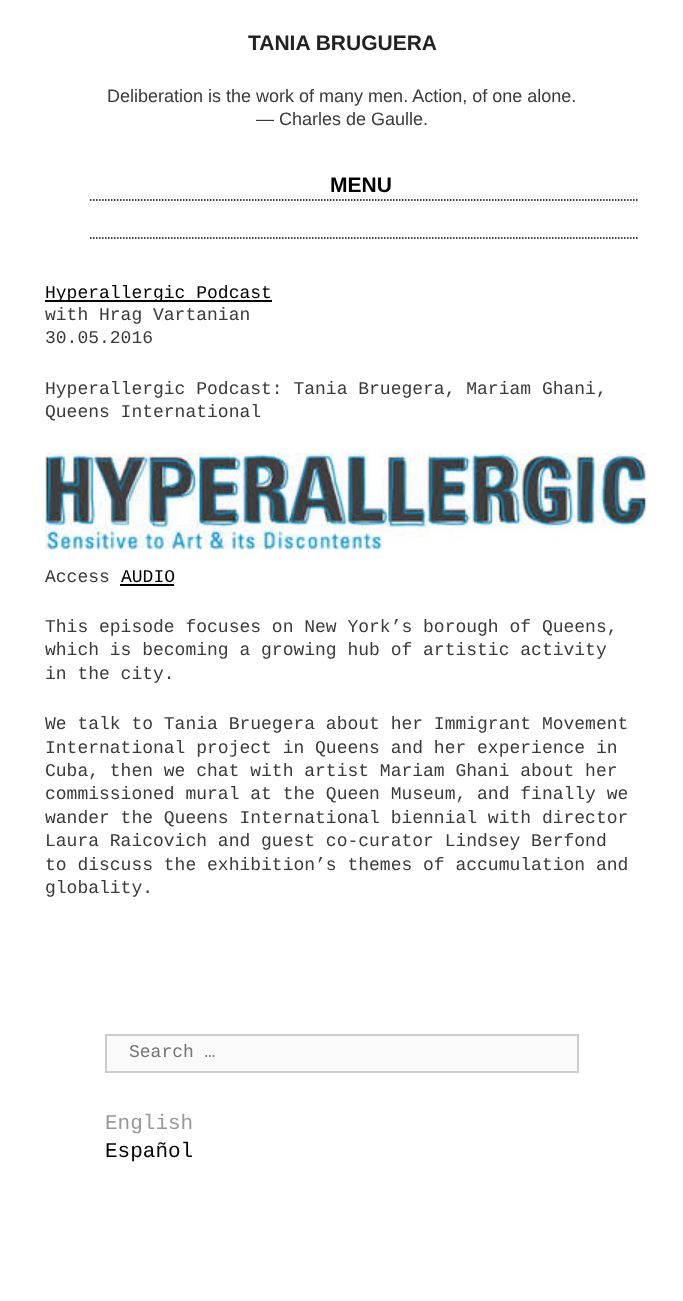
<?xml version="1.0" encoding="UTF-8"?>
<svg xmlns="http://www.w3.org/2000/svg" width="683" height="1301">
    <rect width="100%" height="100%" fill="#FFFFFF"/>
    <text x="248" y="50" font-family="Liberation Sans" font-size="21" font-weight="700" fill="#222222">TANIA BRUGUERA</text>
    <text x="107" y="102" font-family="Liberation Sans" font-size="18" fill="#3A3A3A">Deliberation is the work of many men. Action, of one alone.</text>
    <text x="256" y="125" font-family="Liberation Sans" font-size="18" fill="#3A3A3A">— Charles de Gaulle.</text>
    <text x="330" y="192" font-family="Liberation Sans" font-size="21" font-weight="700" fill="#000000">MENU</text>
    <path d="M 90 200 H 639" fill="none" stroke="#000000" stroke-width="1.5" stroke-dasharray="1.5 1.5"/>
    <path d="M 90 238 H 639" fill="none" stroke="#000000" stroke-width="1.5" stroke-dasharray="1.5 1.5"/>
    <rect x="45" y="300" width="227" height="2" fill="#000000"/>
    <text x="45" y="298" font-family="Liberation Mono" font-size="18" fill="#000000">Hyperallergic Podcast</text>
    <text font-family="Liberation Mono" font-size="18" fill="#3A3A3A">
        <tspan x="45" y="320">with Hrag Vartanian</tspan>
        <tspan x="45" y="343">30.05.2016</tspan>
    </text>
    <text font-family="Liberation Mono" font-size="18" fill="#3A3A3A">
        <tspan x="45" y="394">Hyperallergic Podcast: Tania Bruegera, Mariam Ghani,</tspan>
        <tspan x="45" y="417">Queens International</tspan>
    </text>
    <image x="45" y="453" width="602" height="97" href="img_01.png"/>
    <text x="45" y="582" font-family="Liberation Mono" font-size="18" fill="#3A3A3A">Access</text>
    <text x="121" y="582" font-family="Liberation Mono" font-size="18" fill="#000000">AUDIO</text>
    <rect x="120" y="584" width="54" height="2" fill="#000000"/>
    <text font-family="Liberation Mono" font-size="18" fill="#3A3A3A">
        <tspan x="45" y="632">This episode focuses on New York’s borough of Queens,</tspan>
        <tspan x="45" y="655">which is becoming a growing hub of artistic activity</tspan>
        <tspan x="45" y="679">in the city.</tspan>
    </text>
    <text font-family="Liberation Mono" font-size="18" fill="#3A3A3A">
        <tspan x="45" y="729">We talk to Tania Bruegera about her Immigrant Movement</tspan>
        <tspan x="45" y="753">International project in Queens and her experience in</tspan>
        <tspan x="45" y="776">Cuba, then we chat with artist Mariam Ghani about her</tspan>
        <tspan x="45" y="799">commissioned mural at the Queen Museum, and finally we</tspan>
        <tspan x="45" y="823">wander the Queens International biennial with director</tspan>
        <tspan x="45" y="846">Laura Raicovich and guest co-curator Lindsey Berfond</tspan>
        <tspan x="45" y="870">to discuss the exhibition’s themes of accumulation and</tspan>
        <tspan x="45" y="893">globality.</tspan>
    </text>
    <rect x="106" y="1035" width="472" height="37" fill="#FAFAFA" stroke="#CCCCCC" stroke-width="2"/>
    <text x="129" y="1057" font-family="Liberation Mono" font-size="18" fill="#757575">Search …</text>
    <text x="105" y="1129" font-family="Liberation Mono" font-size="21" fill="#999999">English</text>
    <text x="105" y="1157" font-family="Liberation Mono" font-size="21" fill="#000000">Español</text>
</svg>
